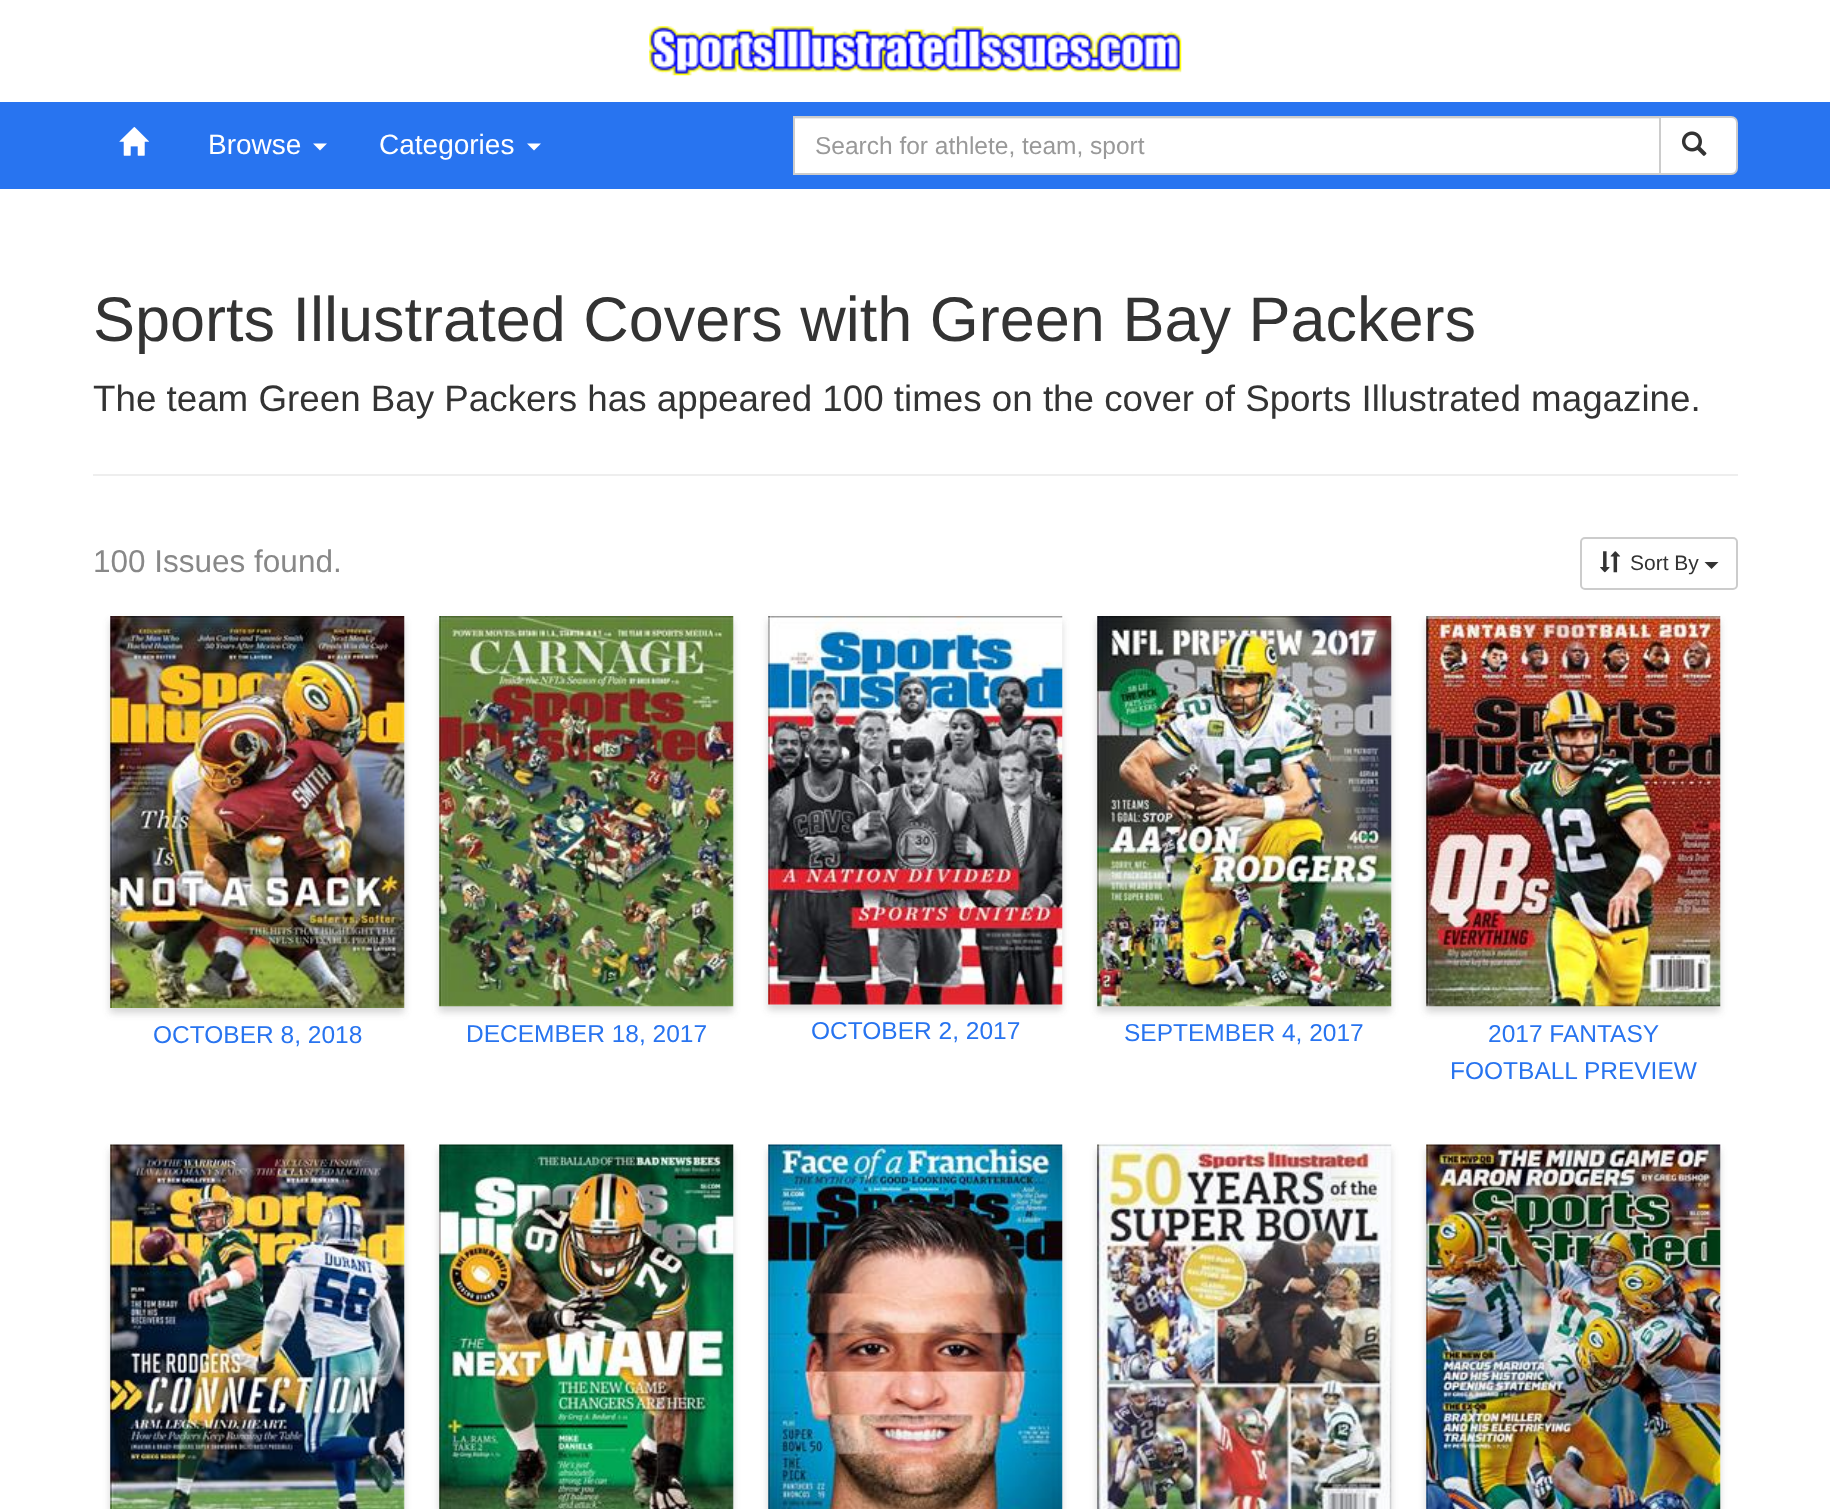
<?xml version="1.0" encoding="UTF-8"?>
<svg xmlns="http://www.w3.org/2000/svg" width="1830" height="1509">
    <defs>
        <filter id="blur1" x="-50%" y="-200%" width="200%" height="500%"><feGaussianBlur stdDeviation="3.5"/></filter>
    </defs>
    <rect width="100%" height="100%" fill="#FFFFFF"/>
    <image x="649" y="26" width="533" height="50" href="img_01.png"/>
    <rect x="0" y="102" width="1830" height="87" fill="#2874F0"/>
    <image x="119" y="127" width="30" height="29" href="img_02.png"/>
    <text x="208" y="154" font-family="Liberation Sans" font-size="28" fill="#FFFFFF">Browse</text>
    <path d="M 313 143.5 H 327 L 320 150.5 Z" fill="#FFFFFF"/>
    <text x="379" y="154" font-family="Liberation Sans" font-size="28" fill="#FFFFFF">Categories</text>
    <path d="M 527 143.5 H 541 L 534 150.5 Z" fill="#FFFFFF"/>
    <rect x="795" y="119" width="864" height="54" fill="#FFFFFF"/>
    <rect x="795" y="118" width="864" height="1" fill="#ECECEC"/>
    <rect x="794" y="117" width="866" height="57" fill="none" stroke="#CCCCCC" stroke-width="2"/>
    <text x="815" y="154" font-family="Liberation Sans" font-size="24.5" fill="#999999">Search for athlete, team, sport</text>
    <path d="M 1660 117 H 1731 C 1734.5 117 1737 119.5 1737 123 V 168 C 1737 171.5 1734.5 174 1731 174 H 1660 Z" fill="#FFFFFF" stroke="#CCCCCC" stroke-width="2"/>
    <image x="1681" y="131" width="26" height="25" href="img_03.png"/>
    <rect x="93" y="474" width="1645" height="2" fill="#EEEEEE"/>
    <text x="93" y="341" font-family="Liberation Sans" font-size="63" fill="#333333">Sports Illustrated Covers with Green Bay Packers</text>
    <text x="93" y="411" font-family="Liberation Sans" font-size="36.75" fill="#333333">The team Green Bay Packers has appeared 100 times on the cover of Sports Illustrated magazine.</text>
    <text x="93" y="572" font-family="Liberation Sans" font-size="31.5" fill="#888888">100 Issues found.</text>
    <rect x="1581" y="538" width="156" height="51" rx="4" fill="none" stroke="#CCCCCC" stroke-width="2"/>
    <image x="1600" y="551" width="21" height="22" href="img_04.png"/>
    <text x="1630" y="570" font-family="Liberation Sans" font-size="21" fill="#333333">Sort By</text>
    <path d="M 1704.5 562 H 1718.5 L 1711.5 569 Z" fill="#333333"/>
    <rect x="110" y="621" width="294" height="392" fill="#787878" fill-opacity="0.3" filter="url(#blur1)"/>
    <image x="110" y="616" width="295" height="392" href="img_05.png"/>
    <text x="153" y="1043" font-family="Liberation Sans" font-size="24.5" fill="#2874F0">OCTOBER 8, 2018</text>
    <rect x="439" y="621" width="294" height="391" fill="#787878" fill-opacity="0.3" filter="url(#blur1)"/>
    <image x="439" y="616" width="295" height="391" href="img_06.png"/>
    <text x="466" y="1042" font-family="Liberation Sans" font-size="24.5" fill="#2874F0">DECEMBER 18, 2017</text>
    <rect x="768" y="621" width="294" height="389" fill="#787878" fill-opacity="0.3" filter="url(#blur1)"/>
    <image x="768" y="616" width="295" height="389" href="img_07.png"/>
    <text x="811" y="1039" font-family="Liberation Sans" font-size="24.5" fill="#2874F0">OCTOBER 2, 2017</text>
    <rect x="1097" y="621" width="294" height="391" fill="#787878" fill-opacity="0.3" filter="url(#blur1)"/>
    <image x="1097" y="616" width="295" height="391" href="img_08.png"/>
    <text x="1124" y="1041" font-family="Liberation Sans" font-size="24.5" fill="#2874F0">SEPTEMBER 4, 2017</text>
    <rect x="1426" y="621" width="294" height="391" fill="#787878" fill-opacity="0.3" filter="url(#blur1)"/>
    <image x="1426" y="616" width="295" height="391" href="img_09.png"/>
    <text x="1488" y="1042" font-family="Liberation Sans" font-size="24.5" fill="#2874F0">2017 FANTASY</text>
    <text x="1450" y="1079" font-family="Liberation Sans" font-size="24.5" fill="#2874F0">FOOTBALL PREVIEW</text>
    <rect x="110" y="1150" width="294" height="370" fill="#787878" fill-opacity="0.3" filter="url(#blur1)"/>
    <image x="110" y="1144" width="295" height="365" href="img_10.png"/>
    <rect x="439" y="1150" width="294" height="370" fill="#787878" fill-opacity="0.3" filter="url(#blur1)"/>
    <image x="439" y="1144" width="295" height="365" href="img_11.png"/>
    <rect x="768" y="1150" width="294" height="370" fill="#787878" fill-opacity="0.3" filter="url(#blur1)"/>
    <image x="768" y="1144" width="295" height="365" href="img_12.png"/>
    <rect x="1097" y="1150" width="294" height="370" fill="#787878" fill-opacity="0.3" filter="url(#blur1)"/>
    <image x="1097" y="1144" width="295" height="365" href="img_13.png"/>
    <rect x="1426" y="1150" width="294" height="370" fill="#787878" fill-opacity="0.3" filter="url(#blur1)"/>
    <image x="1426" y="1144" width="295" height="365" href="img_14.png"/>
</svg>
